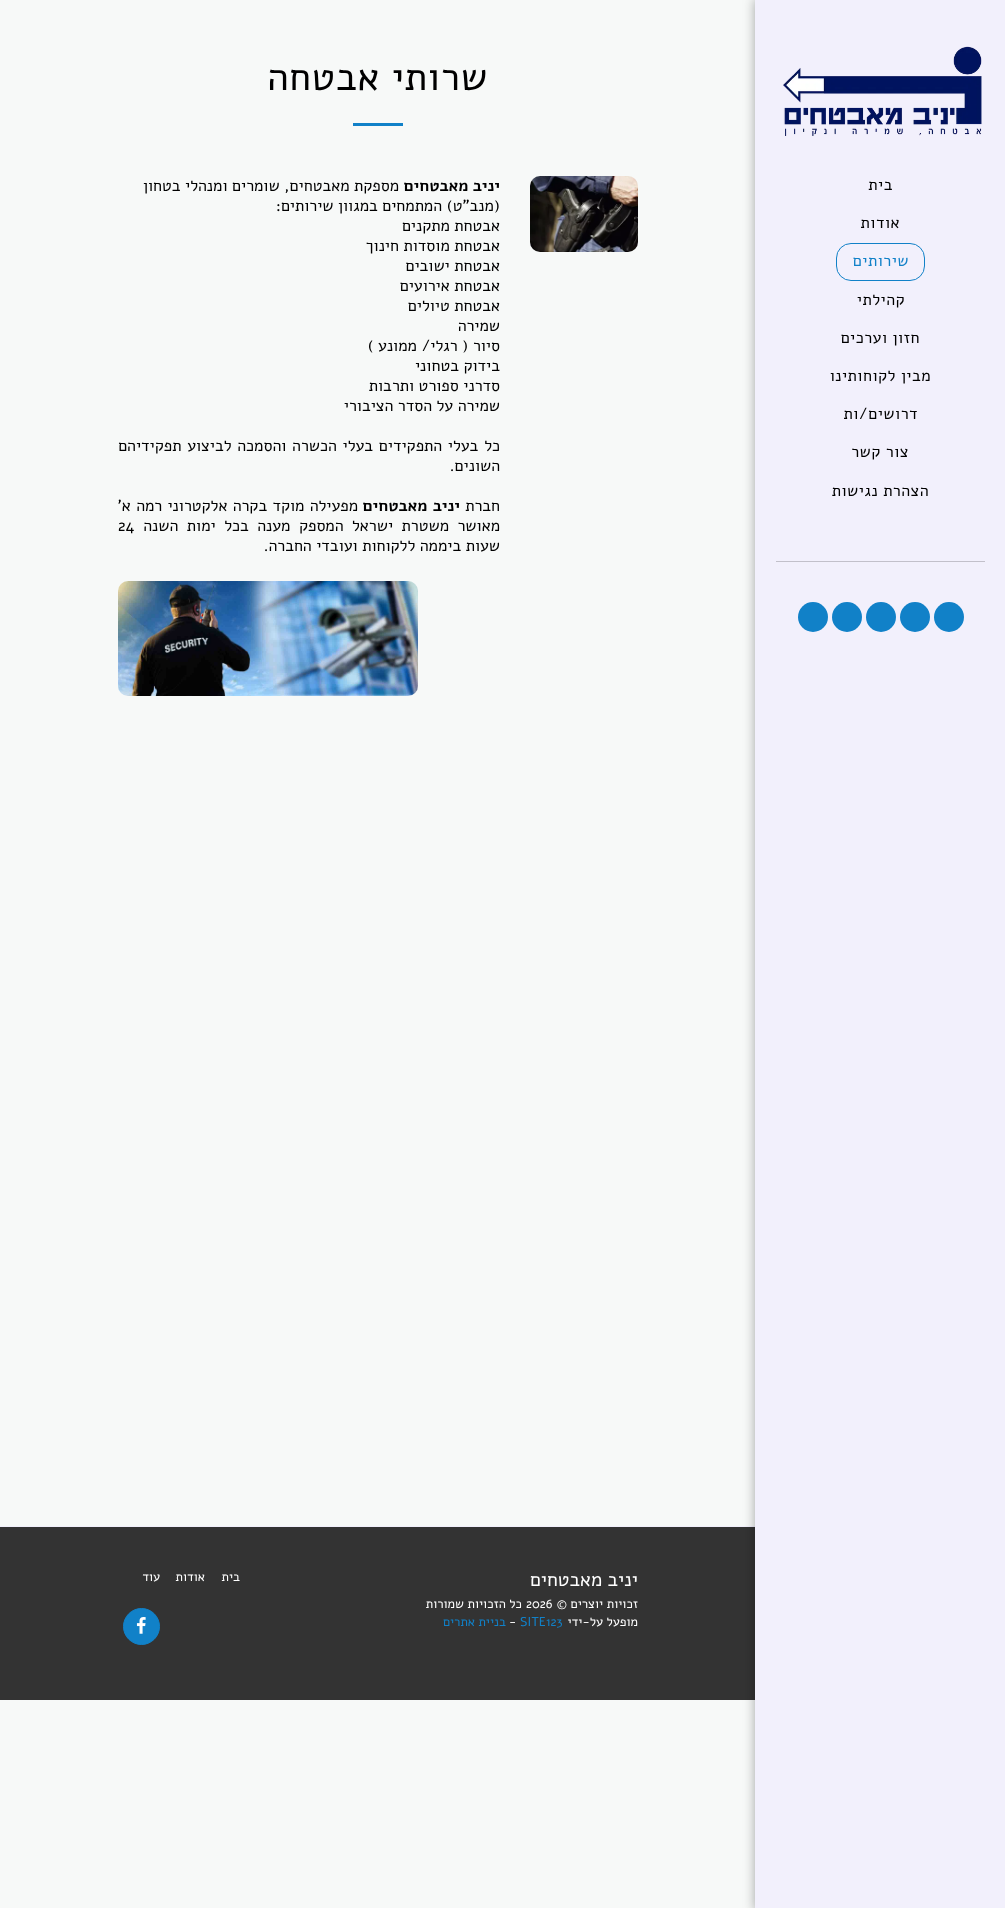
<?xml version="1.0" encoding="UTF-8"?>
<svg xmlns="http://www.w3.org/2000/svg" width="1005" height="1908">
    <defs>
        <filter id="blur1" x="-50%" y="-200%" width="200%" height="500%"><feGaussianBlur stdDeviation="6"/></filter>
    </defs>
    <rect width="100%" height="100%" fill="#F7F9F8"/>
    <rect x="0" y="1527" width="755" height="173" fill="#333333"/>
    <rect x="0" y="1526" width="755" height="1" fill="#F2F0FC"/>
    <rect x="755" y="-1" width="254" height="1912" fill="#000000" fill-opacity="0.35" filter="url(#blur1)"/>
    <rect x="755" y="0" width="250" height="1908" fill="#F2F0FC"/>
    <image x="783" y="46" width="199" height="90" href="img_01.png"/>
    <text x="893" y="190" font-family="Alef" font-size="16" letter-spacing="0.5" direction="rtl" fill="#000000">בית</text>
    <text x="900" y="228" font-family="Alef" font-size="16" letter-spacing="0.5" direction="rtl" fill="#000000">אודות</text>
    <rect x="836.5" y="243.5" width="88" height="37" rx="14.5" fill="none" stroke="#1181C8"/>
    <text x="909" y="266" font-family="Alef" font-size="16" letter-spacing="0.5" direction="rtl" fill="#1181C8">שירותים</text>
    <text x="905" y="305" font-family="Alef" font-size="16" letter-spacing="0.5" direction="rtl" fill="#000000">קהילתי</text>
    <text x="920" y="343" font-family="Alef" font-size="16" letter-spacing="0.5" direction="rtl" fill="#000000">חזון וערכים</text>
    <text x="931" y="381" font-family="Alef" font-size="16" letter-spacing="0.5" direction="rtl" fill="#000000">מבין לקוחותינו</text>
    <text x="918" y="419" font-family="Alef" font-size="16" letter-spacing="0.5" direction="rtl" fill="#000000">דרושים/ות</text>
    <text x="909" y="457" font-family="Alef" font-size="16" letter-spacing="0.5" direction="rtl" fill="#000000">צור קשר</text>
    <text x="929" y="496" font-family="Alef" font-size="16" letter-spacing="0.5" direction="rtl" fill="#000000">הצהרת נגישות</text>
    <rect x="776" y="561" width="209" height="1" fill="#C2C0CA"/>
    <circle cx="949" cy="617" r="15" fill="#1181C8"/>
    <circle cx="915" cy="617" r="15" fill="#1181C8"/>
    <circle cx="881" cy="617" r="15" fill="#1181C8"/>
    <circle cx="847" cy="617" r="15" fill="#1181C8"/>
    <circle cx="813" cy="617" r="15" fill="#1181C8"/>
    <text x="488" y="90" font-family="Alef" font-size="39" letter-spacing="0.5" direction="rtl" fill="#000000">שרותי אבטחה</text>
    <rect x="353" y="123" width="50" height="3" fill="#1181C8"/>
    <image x="530" y="176" width="108" height="76" href="img_02.png"/>
    <text x="500" y="191" font-family="Alef" font-size="16" font-weight="700" direction="rtl" fill="#000000">יניב מאבטחים</text>
    <text x="399" y="191" font-family="Alef" font-size="16" direction="rtl" fill="#000000">מספקת מאבטחים, שומרים ומנהלי בטחון</text>
    <text font-family="Alef" font-size="16" direction="rtl" fill="#000000">
        <tspan x="500" y="211">(מנב"ט) המתמחים במגוון שירותים:</tspan>
        <tspan x="500" y="231">אבטחת מתקנים</tspan>
        <tspan x="500" y="251">אבטחת מוסדות חינוך</tspan>
        <tspan x="500" y="271">אבטחת ישובים</tspan>
        <tspan x="500" y="291">אבטחת אירועים</tspan>
        <tspan x="500" y="311">אבטחת טיולים</tspan>
        <tspan x="500" y="331">שמירה</tspan>
        <tspan x="500" y="351">סיור ( רגלי/ ממונע )</tspan>
        <tspan x="500" y="371">בידוק בטחוני</tspan>
        <tspan x="500" y="391">סדרני ספורט ותרבות</tspan>
        <tspan x="500" y="411">שמירה על הסדר הציבורי</tspan>
    </text>
    <text font-family="Alef" font-size="16" direction="rtl" fill="#000000">
        <tspan x="500" y="451" word-spacing="1.25">כל בעלי התפקידים בעלי הכשרה והסמכה לביצוע תפקידיהם</tspan>
        <tspan x="500" y="471">השונים.</tspan>
    </text>
    <text x="500" y="511" font-family="Alef" font-size="16" direction="rtl" fill="#000000">חברת</text>
    <text x="460" y="511" word-spacing="1" font-family="Alef" font-size="16" font-weight="700" direction="rtl" fill="#000000">יניב מאבטחים</text>
    <text x="358" y="511" word-spacing="0.75" font-family="Alef" font-size="16" direction="rtl" fill="#000000">מפעילה מוקד בקרה אלקטרוני רמה א'</text>
    <text x="500" y="531" word-spacing="4" font-family="Alef" font-size="16" direction="rtl" fill="#000000">מאושר משטרת ישראל המספק מענה בכל ימות השנה</text>
    <text x="118" y="531" font-family="Alef" font-size="16" fill="#000000">24</text>
    <text x="500" y="551" font-family="Alef" font-size="16" direction="rtl" fill="#000000">שעות ביממה ללקוחות ועובדי החברה.</text>
    <image x="118" y="581" width="300" height="115" href="img_03.png"/>
    <text x="638" y="1586" font-family="Alef" font-size="19.25" direction="rtl" fill="#FFFFFF">יניב מאבטחים</text>
    <text x="638" y="1608" font-family="Alef" font-size="12.75" direction="rtl" fill="#FFFFFF">זכויות יוצרים ©</text>
    <text x="526" y="1608" font-family="Alef" font-size="12.75" fill="#FFFFFF">2026</text>
    <text x="522" y="1608" font-family="Alef" font-size="12.75" direction="rtl" fill="#FFFFFF">כל הזכויות שמורות</text>
    <text x="638" y="1626" font-family="Alef" font-size="12.75" direction="rtl" fill="#FFFFFF">מופעל על-ידי</text>
    <text x="520" y="1626" font-family="Alef" font-size="12.75" fill="#1181C8">SITE123</text>
    <text x="509" y="1626" font-family="Alef" font-size="12.75" fill="#FFFFFF">-</text>
    <text x="506" y="1626" font-family="Alef" font-size="12.75" direction="rtl" fill="#1181C8">בניית אתרים</text>
    <text x="240" y="1581" font-family="Alef" font-size="12.75" direction="rtl" fill="#FFFFFF">בית</text>
    <text x="205" y="1581" font-family="Alef" font-size="12.75" direction="rtl" fill="#FFFFFF">אודות</text>
    <text x="160" y="1581" font-family="Alef" font-size="12.75" direction="rtl" fill="#FFFFFF">עוד</text>
    <circle cx="141.5" cy="1626.5" r="18" fill="#1181C8" stroke="#1181C8"/>
    <image x="136" y="1617" width="10" height="17" href="img_04.png"/>
</svg>
